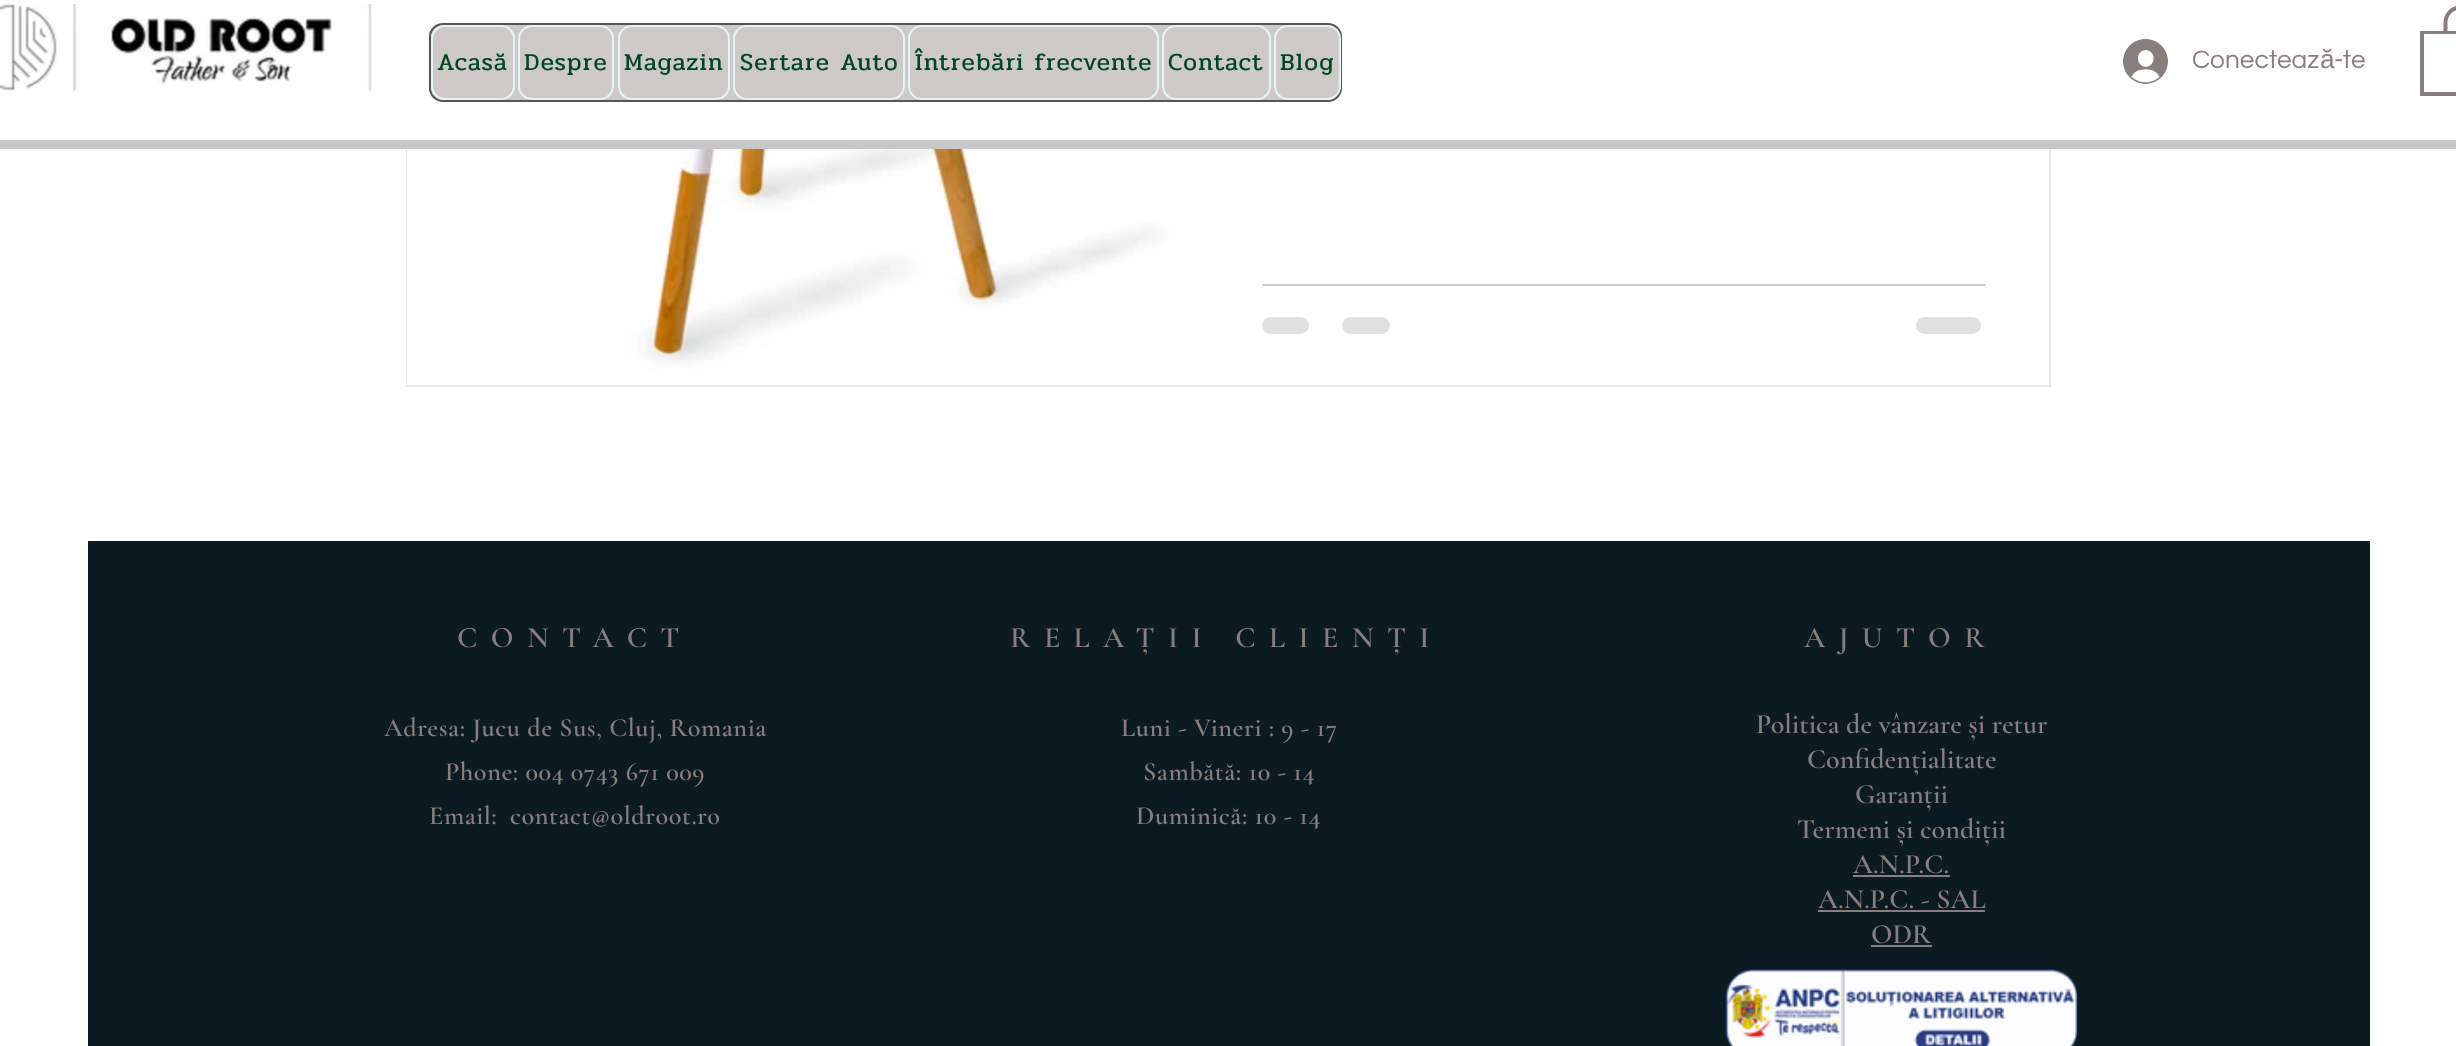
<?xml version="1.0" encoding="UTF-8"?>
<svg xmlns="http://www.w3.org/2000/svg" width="2456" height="1046">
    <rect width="100%" height="100%" fill="#FFFFFF"/>
    <rect x="407" y="-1" width="1643" height="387" fill="none" stroke="#E8E6E6" stroke-width="2"/>
    <image x="407" y="149" width="123" height="236" href="img_01.png"/>
    <image x="530" y="149" width="671" height="236" href="img_02.png"/>
    <rect x="1262" y="284" width="724" height="2" fill="#CCCCCC"/>
    <rect x="1262" y="317" width="47" height="17" rx="8.5" fill="#E0E0E0"/>
    <rect x="1342" y="317" width="48" height="17" rx="8.5" fill="#E0E0E0"/>
    <rect x="1916" y="317" width="65" height="17" rx="8.5" fill="#E0E0E0"/>
    <rect x="406" y="0" width="1645" height="140" fill="#FFFFFF"/>
    <rect x="0" y="140" width="2456" height="9" fill="#C7C7C7"/>
    <image x="0" y="4" width="57" height="87" href="img_03.png"/>
    <image x="73" y="4" width="299" height="88" href="img_04.png"/>
    <rect x="430" y="24" width="911" height="77" rx="13" fill="#CDC9C9" stroke="#5B5454" stroke-width="2"/>
    <rect x="432" y="26" width="82" height="73" rx="13" fill="none" stroke="#E7F4F6" stroke-width="2"/>
    <text x="437" y="70" font-family="Pridi" font-size="24.5" letter-spacing="1.25" fill="#004524">Acasă</text>
    <rect x="519" y="26" width="94" height="73" rx="13" fill="none" stroke="#E7F4F6" stroke-width="2"/>
    <text x="524" y="70" font-family="Pridi" font-size="24.5" letter-spacing="1.25" fill="#004524">Despre</text>
    <rect x="619" y="26" width="110" height="73" rx="13" fill="none" stroke="#E7F4F6" stroke-width="2"/>
    <text x="624" y="70" font-family="Pridi" font-size="24.5" letter-spacing="1.25" fill="#004524">Magazin</text>
    <rect x="734" y="26" width="170" height="73" rx="13" fill="none" stroke="#E7F4F6" stroke-width="2"/>
    <text x="740" y="70" font-family="Pridi" font-size="24.5" letter-spacing="1.25" fill="#004524">Sertare Auto</text>
    <rect x="909" y="26" width="249" height="73" rx="13" fill="none" stroke="#E7F4F6" stroke-width="2"/>
    <text x="915" y="70" font-family="Pridi" font-size="24.5" letter-spacing="1.25" fill="#004524">Întrebări frecvente</text>
    <rect x="1163" y="26" width="107" height="73" rx="13" fill="none" stroke="#E7F4F6" stroke-width="2"/>
    <text x="1168" y="70" font-family="Pridi" font-size="24.5" letter-spacing="1.25" fill="#004524">Contact</text>
    <rect x="1275" y="26" width="65" height="73" rx="13" fill="none" stroke="#E7F4F6" stroke-width="2"/>
    <text x="1280" y="70" font-family="Pridi" font-size="24.5" letter-spacing="1.25" fill="#004524">Blog</text>
    <image x="2123" y="39" width="45" height="45" href="img_05.png"/>
    <text x="2192" y="68" font-family="Questrial" font-size="26.25" fill="#897E7E">Conecteaz</text>
    <text x="2320" y="68" font-family="Liberation Sans" font-size="26.25" fill="#897E7E">ă</text>
    <text x="2334" y="68" font-family="Questrial" font-size="26.25" fill="#897E7E">-te</text>
    <path d="M 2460 5.5 C 2451 5.5 2443.5 13.5 2443.5 23 V 32 H 2447.5 V 23 C 2447.5 15.5 2453 9.5 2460.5 9.5 C 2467.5 9.5 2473 15.5 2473 23 V 32 H 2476.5 V 31 H 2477 V 23 C 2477 13.5 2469.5 5.5 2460 5.5 Z" fill="#897E7E"/>
    <path d="M 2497 34 V 92 H 2424 V 34 H 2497 M 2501 31 H 2420 V 96 H 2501 Z" fill="#897E7E"/>
    <rect x="88" y="541" width="2282" height="505" fill="#0C1B22"/>
    <text x="457" y="647" font-family="Cormorant Garamond" font-size="29.75" font-weight="600" letter-spacing="13.4" fill="#897E7E">CONTACT</text>
    <text x="1010" y="647" font-family="Cormorant Garamond" font-size="29.75" font-weight="600" letter-spacing="13.4" fill="#897E7E">RELAȚII CLIENȚI</text>
    <text x="1804" y="647" font-family="Cormorant Garamond" font-size="29.75" font-weight="600" letter-spacing="13.4" fill="#897E7E">AJUTOR</text>
    <text x="384" y="736" font-family="Cormorant Garamond" font-size="26.25" font-weight="600" letter-spacing="0.55" fill="#897E7E">Adresa: Jucu de Sus, Cluj, Romania</text>
    <text x="445" y="780" font-family="Cormorant Garamond" font-size="26.25" font-weight="600" letter-spacing="0.55" fill="#897E7E">Phone: 004 0743 671 009</text>
    <text x="429" y="824" font-family="Cormorant Garamond" font-size="26.25" font-weight="600" letter-spacing="0.55" fill="#897E7E">Email:</text>
    <text x="510" y="824" font-family="Cormorant Garamond" font-size="26.25" font-weight="600" letter-spacing="0.55" fill="#897E7E">contact@oldroot.ro</text>
    <text x="1121" y="736" font-family="Cormorant Garamond" font-size="26.25" font-weight="600" letter-spacing="0.55" fill="#897E7E">Luni - Vineri : 9 - 17</text>
    <text x="1143" y="780" font-family="Cormorant Garamond" font-size="26.25" font-weight="600" letter-spacing="0.55" fill="#897E7E">Sambătă: 10 - 14</text>
    <text x="1136" y="824" font-family="Cormorant Garamond" font-size="26.25" font-weight="600" letter-spacing="0.55" fill="#897E7E">Duminică: 10 - 14</text>
    <text x="1756" y="733" font-family="Cormorant Garamond" font-size="28" font-weight="600" fill="#897E7E">Politica de vânzare și retur</text>
    <text x="1807" y="768" font-family="Cormorant Garamond" font-size="28" font-weight="600" fill="#897E7E">Confidențialitate</text>
    <text x="1855" y="803" font-family="Cormorant Garamond" font-size="28" font-weight="600" fill="#897E7E">Garanții</text>
    <text x="1797" y="838" font-family="Cormorant Garamond" font-size="28" font-weight="600" fill="#897E7E">Termeni și condiții</text>
    <text x="1853" y="873" font-family="Cormorant Garamond" font-size="28" font-weight="600" fill="#897E7E">A.N.P.C.</text>
    <rect x="1853" y="875" width="97" height="2" fill="#897E7E"/>
    <text x="1818" y="908" font-family="Cormorant Garamond" font-size="28" font-weight="600" fill="#897E7E">A.N.P.C. - SAL</text>
    <rect x="1818" y="910" width="167" height="2" fill="#897E7E"/>
    <text x="1871" y="943" font-family="Cormorant Garamond" font-size="28" font-weight="600" fill="#897E7E">ODR</text>
    <rect x="1871" y="945" width="61" height="2" fill="#897E7E"/>
    <image x="1725" y="969" width="353" height="77" href="img_06.png"/>
</svg>
